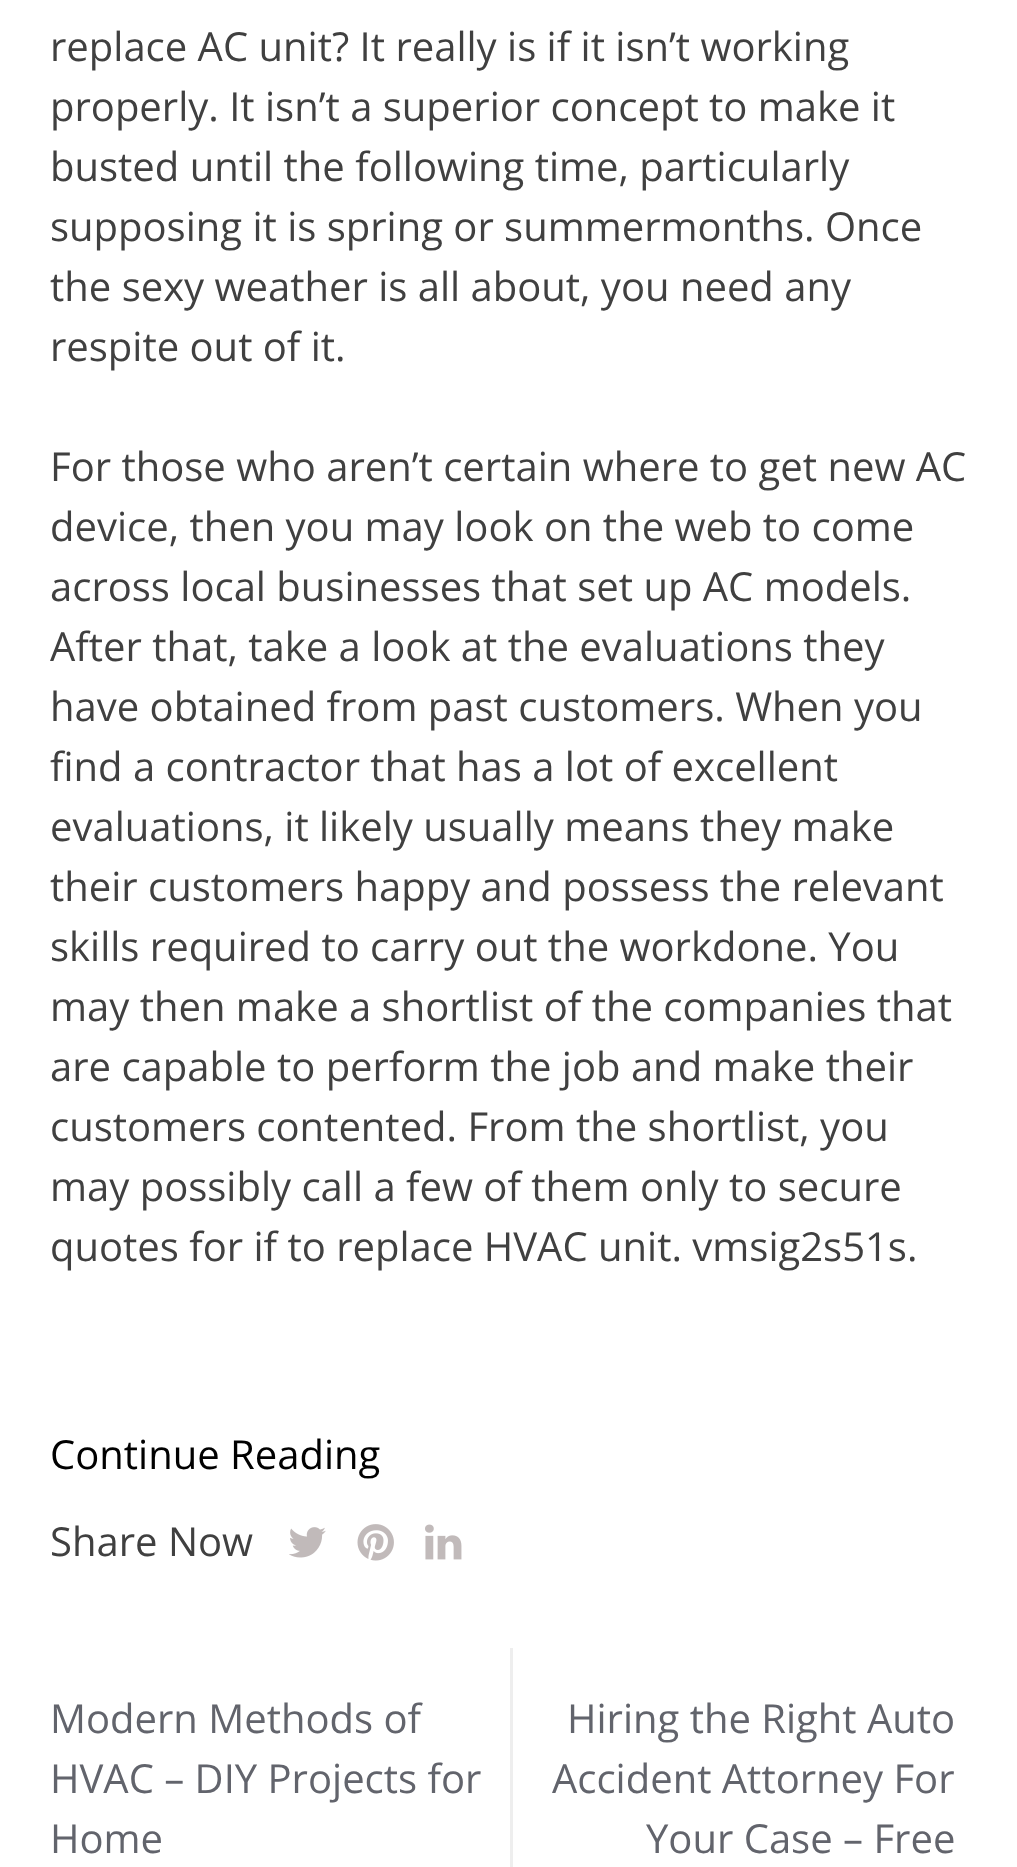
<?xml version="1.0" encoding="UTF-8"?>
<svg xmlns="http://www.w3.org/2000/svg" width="1017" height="1867">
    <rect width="100%" height="100%" fill="#FFFFFF"/>
    <text font-family="Open Sans" font-size="40" fill="#404040">
        <tspan x="50" y="61">replace AC unit? It really is if it isn’t working</tspan>
        <tspan x="50" y="121">properly. It isn’t a superior concept to make it</tspan>
        <tspan x="50" y="181">busted until the following time, particularly</tspan>
        <tspan x="50" y="241">supposing it is spring or summermonths. Once</tspan>
        <tspan x="50" y="301">the sexy weather is all about, you need any</tspan>
        <tspan x="50" y="361">respite out of it.</tspan>
    </text>
    <text font-family="Open Sans" font-size="40" fill="#404040">
        <tspan x="50" y="481">For those who aren’t certain where to get new AC</tspan>
        <tspan x="50" y="541">device, then you may look on the web to come</tspan>
        <tspan x="50" y="601">across local businesses that set up AC models.</tspan>
        <tspan x="50" y="661">After that, take a look at the evaluations they</tspan>
        <tspan x="50" y="721">have obtained from past customers. When you</tspan>
        <tspan x="50" y="781">find a contractor that has a lot of excellent</tspan>
        <tspan x="50" y="841">evaluations, it likely usually means they make</tspan>
        <tspan x="50" y="901">their customers happy and possess the relevant</tspan>
        <tspan x="50" y="961">skills required to carry out the workdone. You</tspan>
        <tspan x="50" y="1021">may then make a shortlist of the companies that</tspan>
        <tspan x="50" y="1081">are capable to perform the job and make their</tspan>
        <tspan x="50" y="1141">customers contented. From the shortlist, you</tspan>
        <tspan x="50" y="1201">may possibly call a few of them only to secure</tspan>
        <tspan x="50" y="1261">quotes for if to replace HVAC unit. vmsig2s51s.</tspan>
    </text>
    <text x="50" y="1469" font-family="Open Sans" font-size="40" fill="#000000">Continue Reading</text>
    <text x="50" y="1556" font-family="Open Sans" font-size="40" fill="#404040">Share Now</text>
    <image x="289" y="1527" width="37" height="31" href="img_01.png"/>
    <image x="357" y="1524" width="37" height="37" href="img_02.png"/>
    <image x="425" y="1524" width="37" height="36" href="img_03.png"/>
    <text font-family="Open Sans" font-size="40" fill="#62646C">
        <tspan x="50" y="1733">Modern Methods of</tspan>
        <tspan x="50" y="1793">HVAC – DIY Projects for</tspan>
        <tspan x="50" y="1853">Home</tspan>
    </text>
    <rect x="510" y="1648" width="3" height="219" fill="#EEEEEE"/>
    <text x="567" y="1733" font-family="Open Sans" font-size="40" fill="#62646C">Hiring the Right Auto</text>
    <text x="552" y="1793" font-family="Open Sans" font-size="40" fill="#62646C">Accident Attorney For</text>
    <text x="646" y="1853" font-family="Open Sans" font-size="40" fill="#62646C">Your Case – Free</text>
</svg>
